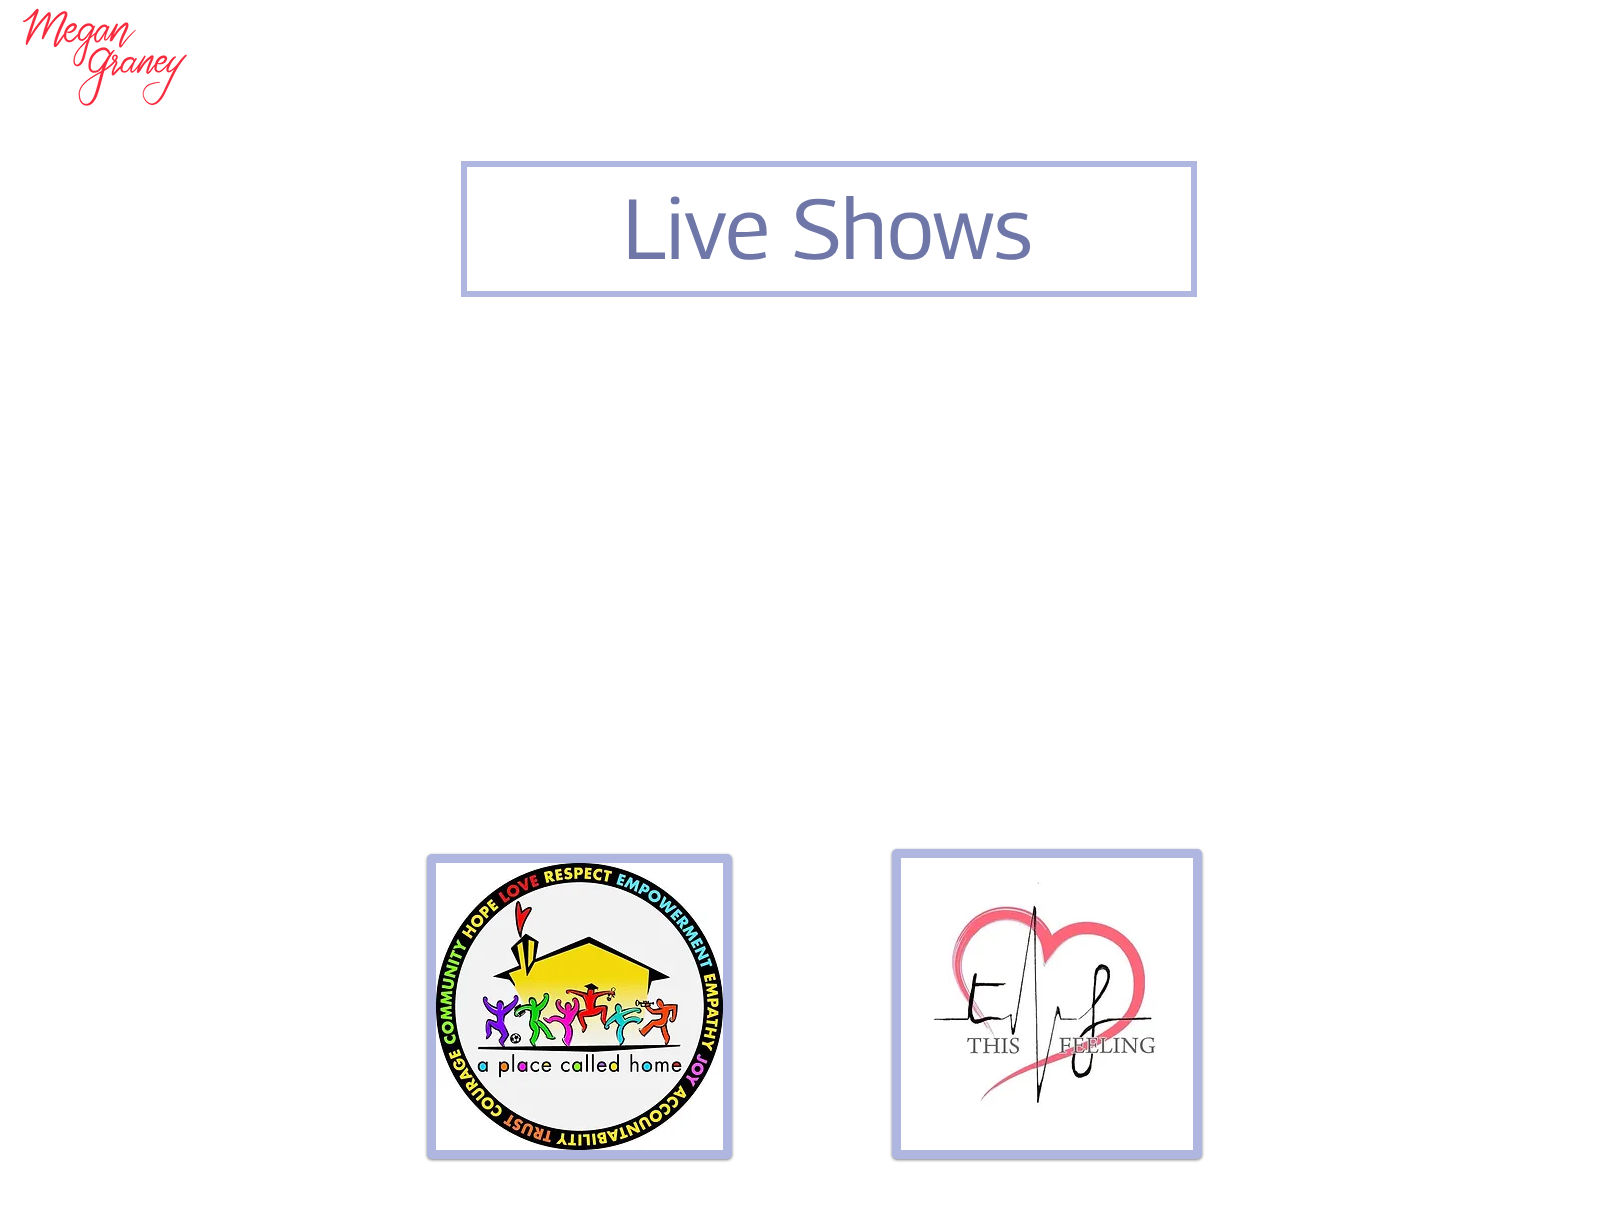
<?xml version="1.0" encoding="UTF-8"?>
<svg xmlns="http://www.w3.org/2000/svg" width="1611" height="1213">
    <defs>
        <filter id="blur1" x="-50%" y="-200%" width="200%" height="500%"><feGaussianBlur stdDeviation="1.5"/></filter>
    </defs>
    <rect width="100%" height="100%" fill="#FFFFFF"/>
    <image x="22" y="8" width="165" height="98" href="img_01.png"/>
    <rect x="464" y="164" width="730" height="130" fill="none" stroke="#AFB6E0" stroke-width="6"/>
    <text x="623" y="259" font-family="Georama" font-size="85" fill="#6E77A8">Live Shows</text>
    <rect x="427" y="855" width="305" height="305" rx="5" fill="#000000" fill-opacity="0.5" filter="url(#blur1)"/>
    <rect x="431.5" y="858.5" width="296" height="296" rx="0.5" fill="none" stroke="#AFB6E0" stroke-width="9"/>
    <image x="436" y="863" width="287" height="287" href="img_02.png"/>
    <rect x="892" y="850" width="310" height="310" rx="5" fill="#000000" fill-opacity="0.5" filter="url(#blur1)"/>
    <rect x="896.5" y="853.5" width="301" height="301" rx="0.5" fill="none" stroke="#AFB6E0" stroke-width="9"/>
    <image x="901" y="858" width="292" height="292" href="img_03.png"/>
</svg>
